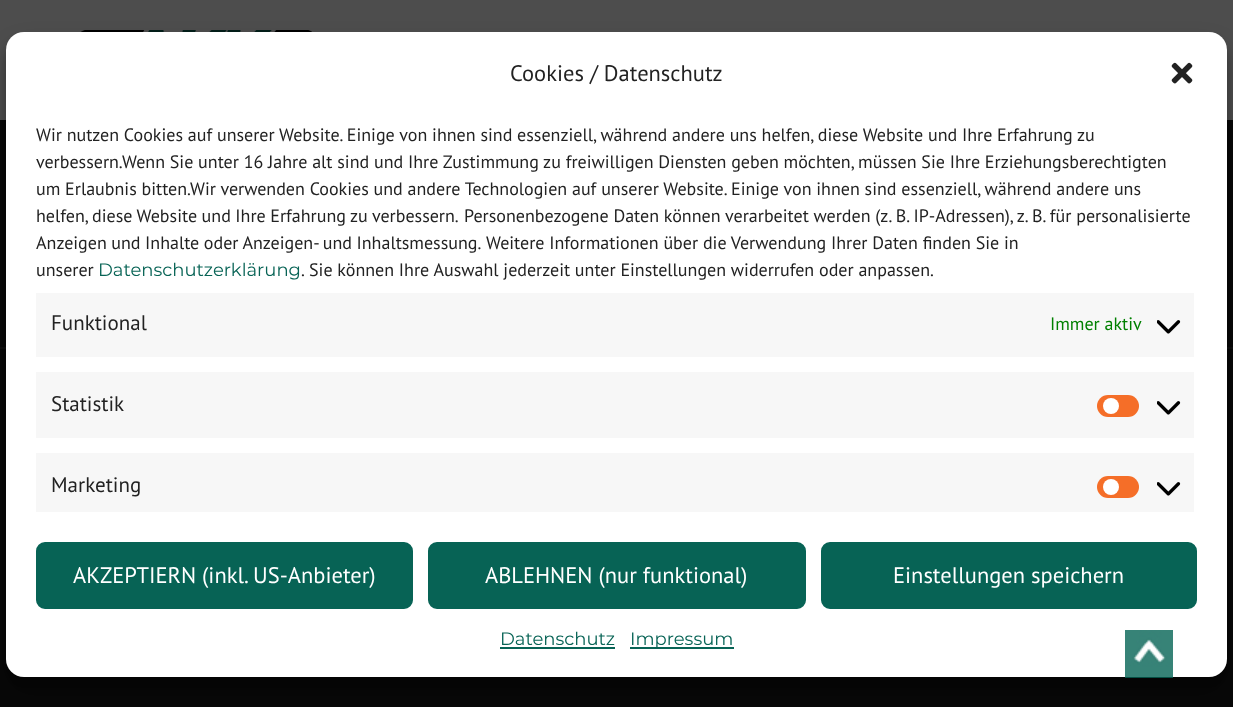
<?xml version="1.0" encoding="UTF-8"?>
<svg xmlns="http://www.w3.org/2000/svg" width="1233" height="707">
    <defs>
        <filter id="blur1" x="-50%" y="-200%" width="200%" height="500%"><feGaussianBlur stdDeviation="4.5"/></filter>
        <filter id="blur2" x="-50%" y="-200%" width="200%" height="500%"><feGaussianBlur stdDeviation="15"/></filter>
    </defs>
    <rect width="100%" height="100%" fill="#070707"/>
    <rect x="0" y="0" width="1233" height="120" fill="#4D4D4D"/>
    <image x="80" y="30" width="232" height="2" href="img_01.png"/>
    <rect x="0" y="347" width="1233" height="2" fill="#0E0E0E"/>
    <rect x="6" y="41" width="1221" height="645" rx="18" fill="#000000" fill-opacity="0.23" filter="url(#blur1)"/>
    <rect x="6" y="47" width="1221" height="645" rx="18" fill="#000000" fill-opacity="0.19" filter="url(#blur2)"/>
    <rect x="6" y="32" width="1221" height="645" rx="18" fill="#FFFFFF"/>
    <text x="510" y="81" font-family="PT Sans" font-size="22.5" fill="#222222">Cookies / Datenschutz</text>
    <image x="1171" y="62" width="22" height="22" href="img_02.png"/>
    <text font-family="PT Sans" font-size="18" fill="#222222">
        <tspan x="36" y="141">Wir nutzen Cookies auf unserer Website. Einige von ihnen sind essenziell, während andere uns helfen, diese Website und Ihre Erfahrung zu</tspan>
        <tspan x="36" y="168">verbessern.</tspan>
    </text>
    <text x="122" y="168" font-family="PT Sans" font-size="18" fill="#222222">Wenn Sie unter 16 Jahre alt sind und Ihre Zustimmung zu freiwilligen Diensten geben möchten, müssen Sie Ihre Erziehungsberechtigten</text>
    <text x="36" y="195" font-family="PT Sans" font-size="18" fill="#222222">um Erlaubnis bitten.</text>
    <text x="190" y="195" font-family="PT Sans" font-size="18" fill="#222222">Wir verwenden Cookies und andere Technologien auf unserer Website. Einige von ihnen sind essenziell, während andere uns</text>
    <text x="36" y="222" word-spacing="-0.25" font-family="PT Sans" font-size="18" fill="#222222">helfen, diese Website und Ihre Erfahrung zu verbessern.</text>
    <text x="464" y="222" font-family="PT Sans" font-size="18" fill="#222222">Personenbezogene Daten können verarbeitet werden (z. B. IP-Adressen), z. B. für personalisierte</text>
    <text x="36" y="249" word-spacing="-0.25" font-family="PT Sans" font-size="18" fill="#222222">Anzeigen und Inhalte oder Anzeigen- und Inhaltsmessung.</text>
    <text x="486" y="249" font-family="PT Sans" font-size="18" fill="#222222">Weitere Informationen über die Verwendung Ihrer Daten finden Sie in</text>
    <text x="36" y="276" font-family="PT Sans" font-size="18" fill="#222222">unserer</text>
    <text x="98" y="276" font-family="Montserrat" font-size="18" font-weight="100" fill="#076355">Datenschutzerklärung</text>
    <text x="301" y="276" font-family="PT Sans" font-size="18" fill="#222222">.</text>
    <text x="309" y="276" font-family="PT Sans" font-size="18" fill="#222222">Sie können Ihre Auswahl jederzeit unter Einstellungen widerrufen oder anpassen.</text>
    <rect x="36" y="293" width="1158" height="64" fill="#F7F7F7"/>
    <text x="51" y="330" font-family="PT Sans" font-size="21" fill="#222222">Funktional</text>
    <text x="1050" y="330" font-family="PT Sans" font-size="18" fill="#008000">Immer aktiv</text>
    <image x="1157" y="320" width="24" height="14" href="img_03.png"/>
    <rect x="36" y="372" width="1158" height="66" fill="#F7F7F7"/>
    <text x="51" y="411" font-family="PT Sans" font-size="21" fill="#222222">Statistik</text>
    <rect x="1097" y="395" width="42" height="22" rx="11" fill="#F56E28"/>
    <circle cx="1111" cy="406" r="8" fill="#FFFFFF"/>
    <image x="1157" y="401" width="24" height="14" href="img_03.png"/>
    <rect x="36" y="453" width="1158" height="59" fill="#F7F7F7"/>
    <text x="51" y="492" font-family="PT Sans" font-size="21" fill="#222222">Marketing</text>
    <rect x="1097" y="476" width="42" height="22" rx="11" fill="#F56E28"/>
    <circle cx="1111" cy="487" r="8" fill="#FFFFFF"/>
    <image x="1157" y="482" width="24" height="14" href="img_03.png"/>
    <rect x="37" y="543" width="375" height="65" rx="8" fill="#076355" stroke="#076355" stroke-width="2"/>
    <text x="73" y="583" font-family="PT Sans" font-size="22.5" fill="#FFFFFF">AKZEPTIERN (inkl. US-Anbieter)</text>
    <rect x="429" y="543" width="376" height="65" rx="8" fill="#076355" stroke="#076355" stroke-width="2"/>
    <text x="485" y="583" font-family="PT Sans" font-size="22.5" fill="#FFFFFF">ABLEHNEN (nur funktional)</text>
    <rect x="822" y="543" width="374" height="65" rx="8" fill="#076355" stroke="#076355" stroke-width="2"/>
    <text x="893" y="583" font-family="PT Sans" font-size="22.5" fill="#FFFFFF">Einstellungen speichern</text>
    <text x="500" y="645" font-family="Montserrat" font-size="18" font-weight="100" fill="#076355">Datenschutz</text>
    <rect x="500" y="647" width="115" height="2" fill="#076355"/>
    <rect x="630" y="647" width="104" height="2" fill="#076355"/>
    <text x="630" y="645" font-family="Montserrat" font-size="18" font-weight="100" fill="#076355">Impressum</text>
    <image x="1125" y="630" width="48" height="48" href="img_04.png"/>
</svg>
